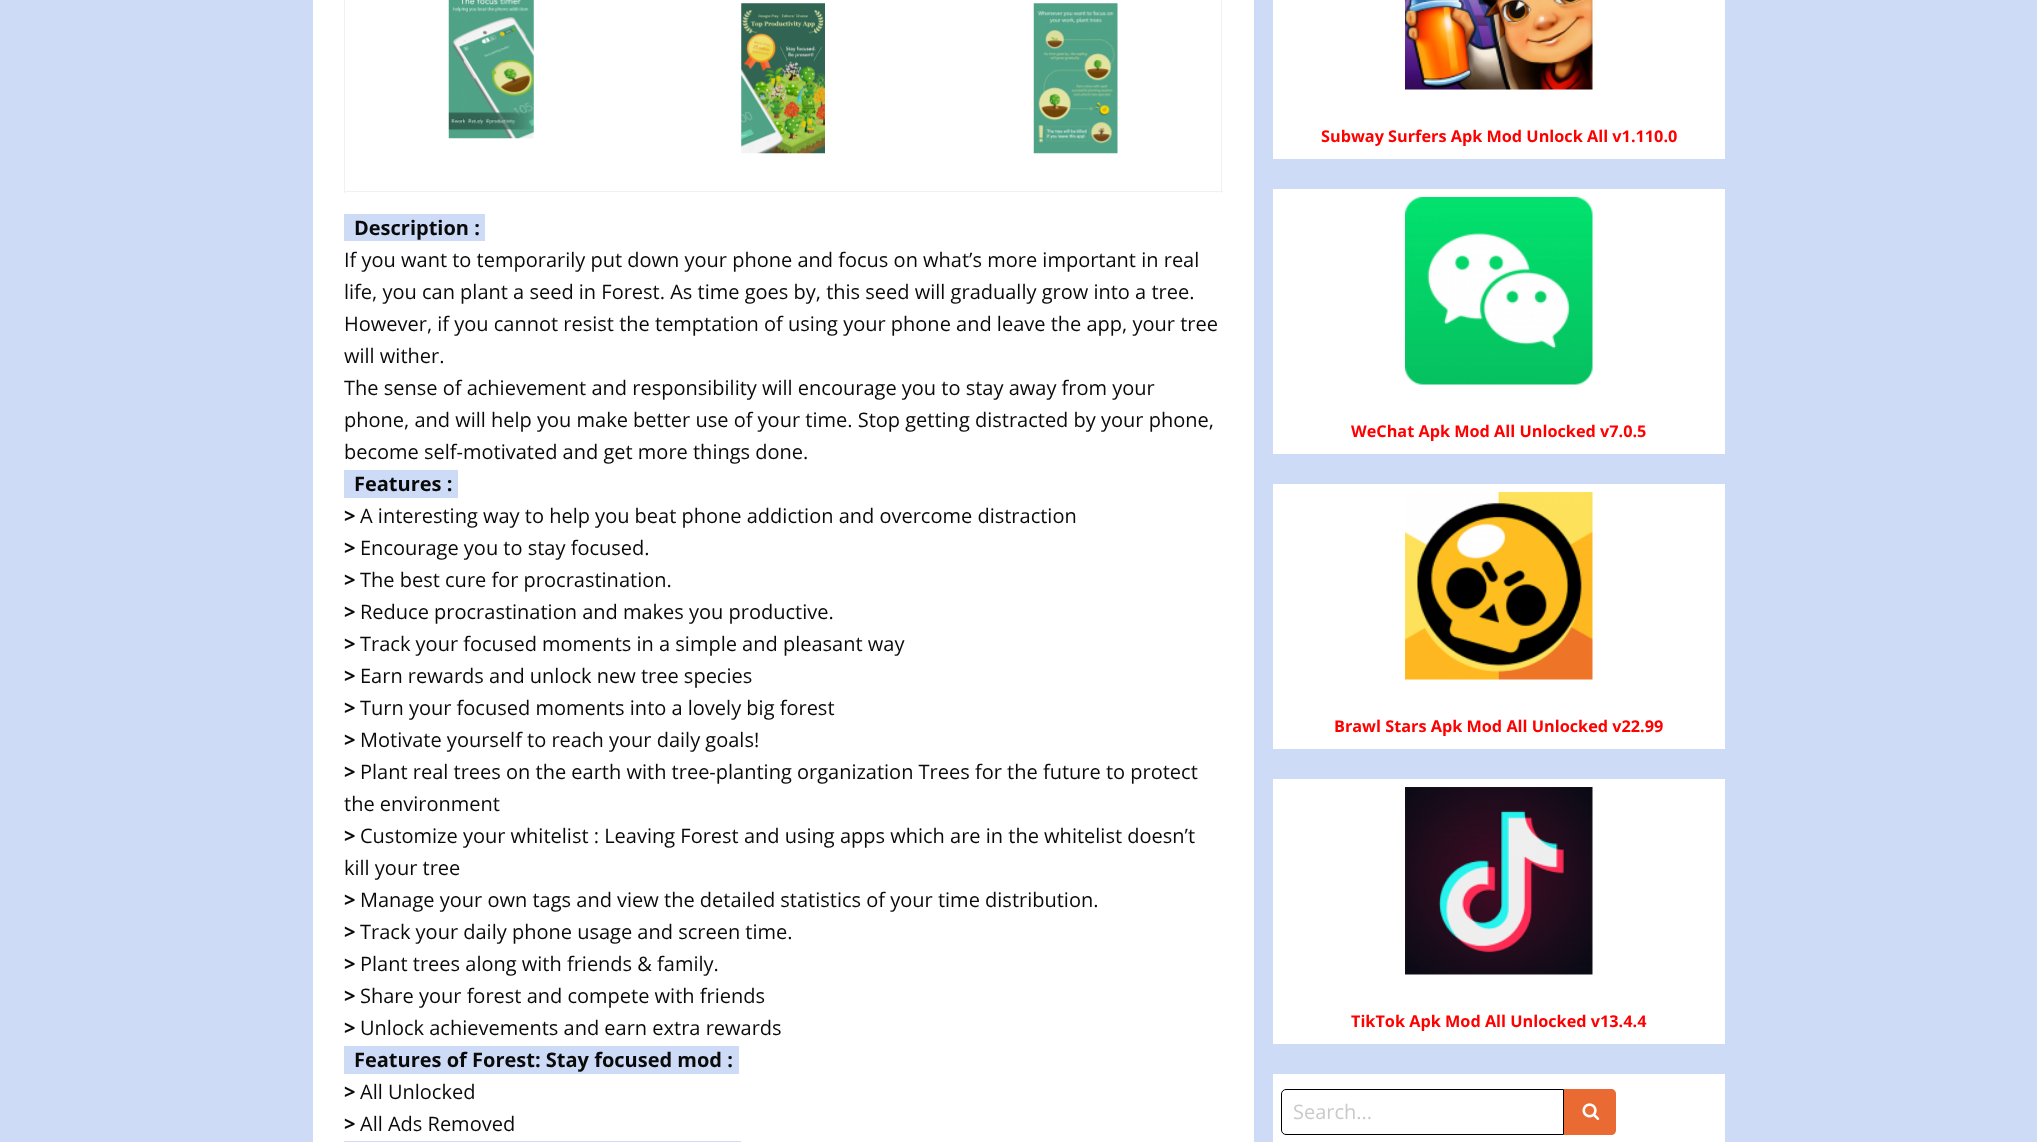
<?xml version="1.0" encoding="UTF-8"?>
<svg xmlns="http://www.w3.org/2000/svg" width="2037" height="1142">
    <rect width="100%" height="100%" fill="#CDDBF7"/>
    <rect x="313" y="0" width="941" height="1142" fill="#FFFFFF"/>
    <rect x="1221" y="0" width="1" height="193" fill="#F1F1F1"/>
    <rect x="344" y="191" width="879" height="1" fill="#F1F1F1"/>
    <rect x="344" y="0" width="1" height="193" fill="#F1F1F1"/>
    <image x="448" y="0" width="86" height="139" href="img_01.png"/>
    <image x="741" y="3" width="84" height="151" href="img_02.png"/>
    <image x="1033" y="3" width="85" height="151" href="img_03.png"/>
    <rect x="344" y="214" width="141" height="27" fill="#CDDBF7"/>
    <text x="354" y="235" font-family="Open Sans" font-size="20" font-weight="700" fill="#0A0A0A">Description :</text>
    <text font-family="Open Sans" font-size="20" fill="#0A0A0A">
        <tspan x="344" y="267">If you want to temporarily put down your phone and focus on what’s more important in real</tspan>
        <tspan x="344" y="299">life, you can plant a seed in Forest. As time goes by, this seed will gradually grow into a tree.</tspan>
        <tspan x="344" y="331">However, if you cannot resist the temptation of using your phone and leave the app, your tree</tspan>
        <tspan x="344" y="363">will wither.</tspan>
        <tspan x="344" y="395">The sense of achievement and responsibility will encourage you to stay away from your</tspan>
        <tspan x="344" y="427">phone, and will help you make better use of your time. Stop getting distracted by your phone,</tspan>
        <tspan x="344" y="459">become self-motivated and get more things done.</tspan>
    </text>
    <rect x="344" y="470" width="114" height="28" fill="#CDDBF7"/>
    <text x="354" y="491" font-family="Open Sans" font-size="20" font-weight="700" fill="#0A0A0A">Features :</text>
    <text x="344" y="523" font-family="Open Sans" font-size="20" font-weight="700" fill="#0A0A0A">&gt;</text>
    <text x="360" y="523" font-family="Open Sans" font-size="20" fill="#0A0A0A">A interesting way to help you beat phone addiction and overcome distraction</text>
    <text x="344" y="555" font-family="Open Sans" font-size="20" font-weight="700" fill="#0A0A0A">&gt;</text>
    <text x="360" y="555" font-family="Open Sans" font-size="20" fill="#0A0A0A">Encourage you to stay focused.</text>
    <text x="344" y="587" font-family="Open Sans" font-size="20" font-weight="700" fill="#0A0A0A">&gt;</text>
    <text x="360" y="587" font-family="Open Sans" font-size="20" fill="#0A0A0A">The best cure for procrastination.</text>
    <text x="344" y="619" font-family="Open Sans" font-size="20" font-weight="700" fill="#0A0A0A">&gt;</text>
    <text x="360" y="619" font-family="Open Sans" font-size="20" fill="#0A0A0A">Reduce procrastination and makes you productive.</text>
    <text x="344" y="651" font-family="Open Sans" font-size="20" font-weight="700" fill="#0A0A0A">&gt;</text>
    <text x="360" y="651" font-family="Open Sans" font-size="20" fill="#0A0A0A">Track your focused moments in a simple and pleasant way</text>
    <text x="344" y="683" font-family="Open Sans" font-size="20" font-weight="700" fill="#0A0A0A">&gt;</text>
    <text x="360" y="683" font-family="Open Sans" font-size="20" fill="#0A0A0A">Earn rewards and unlock new tree species</text>
    <text x="344" y="715" font-family="Open Sans" font-size="20" font-weight="700" fill="#0A0A0A">&gt;</text>
    <text x="360" y="715" font-family="Open Sans" font-size="20" fill="#0A0A0A">Turn your focused moments into a lovely big forest</text>
    <text x="344" y="747" font-family="Open Sans" font-size="20" font-weight="700" fill="#0A0A0A">&gt;</text>
    <text x="360" y="747" font-family="Open Sans" font-size="20" fill="#0A0A0A">Motivate yourself to reach your daily goals!</text>
    <text x="344" y="779" font-family="Open Sans" font-size="20" font-weight="700" fill="#0A0A0A">&gt;</text>
    <text x="360" y="779" font-family="Open Sans" font-size="20" fill="#0A0A0A">Plant real trees on the earth with tree-planting organization Trees for the future to protect</text>
    <text x="344" y="811" font-family="Open Sans" font-size="20" fill="#0A0A0A">the environment</text>
    <text x="344" y="843" font-family="Open Sans" font-size="20" font-weight="700" fill="#0A0A0A">&gt;</text>
    <text x="360" y="843" font-family="Open Sans" font-size="20" fill="#0A0A0A">Customize your whitelist : Leaving Forest and using apps which are in the whitelist doesn’t</text>
    <text x="344" y="875" font-family="Open Sans" font-size="20" fill="#0A0A0A">kill your tree</text>
    <text x="344" y="907" font-family="Open Sans" font-size="20" font-weight="700" fill="#0A0A0A">&gt;</text>
    <text x="360" y="907" font-family="Open Sans" font-size="20" fill="#0A0A0A">Manage your own tags and view the detailed statistics of your time distribution.</text>
    <text x="344" y="939" font-family="Open Sans" font-size="20" font-weight="700" fill="#0A0A0A">&gt;</text>
    <text x="360" y="939" font-family="Open Sans" font-size="20" fill="#0A0A0A">Track your daily phone usage and screen time.</text>
    <text x="344" y="971" font-family="Open Sans" font-size="20" font-weight="700" fill="#0A0A0A">&gt;</text>
    <text x="360" y="971" font-family="Open Sans" font-size="20" fill="#0A0A0A">Plant trees along with friends &amp; family.</text>
    <text x="344" y="1003" font-family="Open Sans" font-size="20" font-weight="700" fill="#0A0A0A">&gt;</text>
    <text x="360" y="1003" font-family="Open Sans" font-size="20" fill="#0A0A0A">Share your forest and compete with friends</text>
    <text x="344" y="1035" font-family="Open Sans" font-size="20" font-weight="700" fill="#0A0A0A">&gt;</text>
    <text x="360" y="1035" font-family="Open Sans" font-size="20" fill="#0A0A0A">Unlock achievements and earn extra rewards</text>
    <rect x="344" y="1046" width="395" height="28" fill="#CDDBF7"/>
    <text x="354" y="1067" font-family="Open Sans" font-size="20" font-weight="700" fill="#0A0A0A">Features of Forest: Stay focused mod :</text>
    <text x="344" y="1099" font-family="Open Sans" font-size="20" font-weight="700" fill="#0A0A0A">&gt;</text>
    <text x="360" y="1099" font-family="Open Sans" font-size="20" fill="#0A0A0A">All Unlocked</text>
    <text x="344" y="1131" font-family="Open Sans" font-size="20" font-weight="700" fill="#0A0A0A">&gt;</text>
    <text x="360" y="1131" font-family="Open Sans" font-size="20" fill="#0A0A0A">All Ads Removed</text>
    <rect x="344" y="1141" width="397" height="1" fill="#CDDBF7"/>
    <rect x="1273" y="0" width="452" height="159" fill="#FFFFFF"/>
    <image x="1405" y="0" width="188" height="90" href="img_04.png"/>
    <text x="1321" y="142" font-family="Open Sans" font-size="16.25" font-weight="700" fill="#FF0000">Subway Surfers Apk Mod Unlock All v1.110.0</text>
    <rect x="1273" y="189" width="452" height="265" fill="#FFFFFF"/>
    <image x="1405" y="197" width="188" height="188" href="img_05.png"/>
    <text x="1351" y="437" font-family="Open Sans" font-size="16.25" font-weight="700" fill="#FF0000">WeChat Apk Mod All Unlocked v7.0.5</text>
    <rect x="1273" y="484" width="452" height="265" fill="#FFFFFF"/>
    <image x="1405" y="492" width="188" height="188" href="img_06.png"/>
    <text x="1334" y="732" font-family="Open Sans" font-size="16.25" font-weight="700" fill="#FF0000">Brawl Stars Apk Mod All Unlocked v22.99</text>
    <rect x="1273" y="779" width="452" height="265" fill="#FFFFFF"/>
    <image x="1405" y="787" width="188" height="188" href="img_07.png"/>
    <text x="1351" y="1027" font-family="Open Sans" font-size="16.25" font-weight="700" fill="#FF0000">TikTok Apk Mod All Unlocked v13.4.4</text>
    <rect x="1273" y="1074" width="452" height="68" fill="#FFFFFF"/>
    <path d="M 1286 1089.5 H 1563.5 V 1134.5 H 1286 C 1283.5 1134.5 1281.5 1132.5 1281.5 1130 V 1094 C 1281.5 1091.5 1283.5 1089.5 1286 1089.5 Z" fill="none" stroke="#000000"/>
    <text x="1293" y="1119" font-family="Open Sans" font-size="20" fill="#CACACA">Search...</text>
    <path d="M 1564 1089 H 1611 C 1614 1089 1616 1091 1616 1094 V 1130 C 1616 1133 1614 1135 1611 1135 H 1564 Z" fill="#EA6A33"/>
    <image x="1582" y="1103" width="18" height="17" href="img_08.png"/>
</svg>
